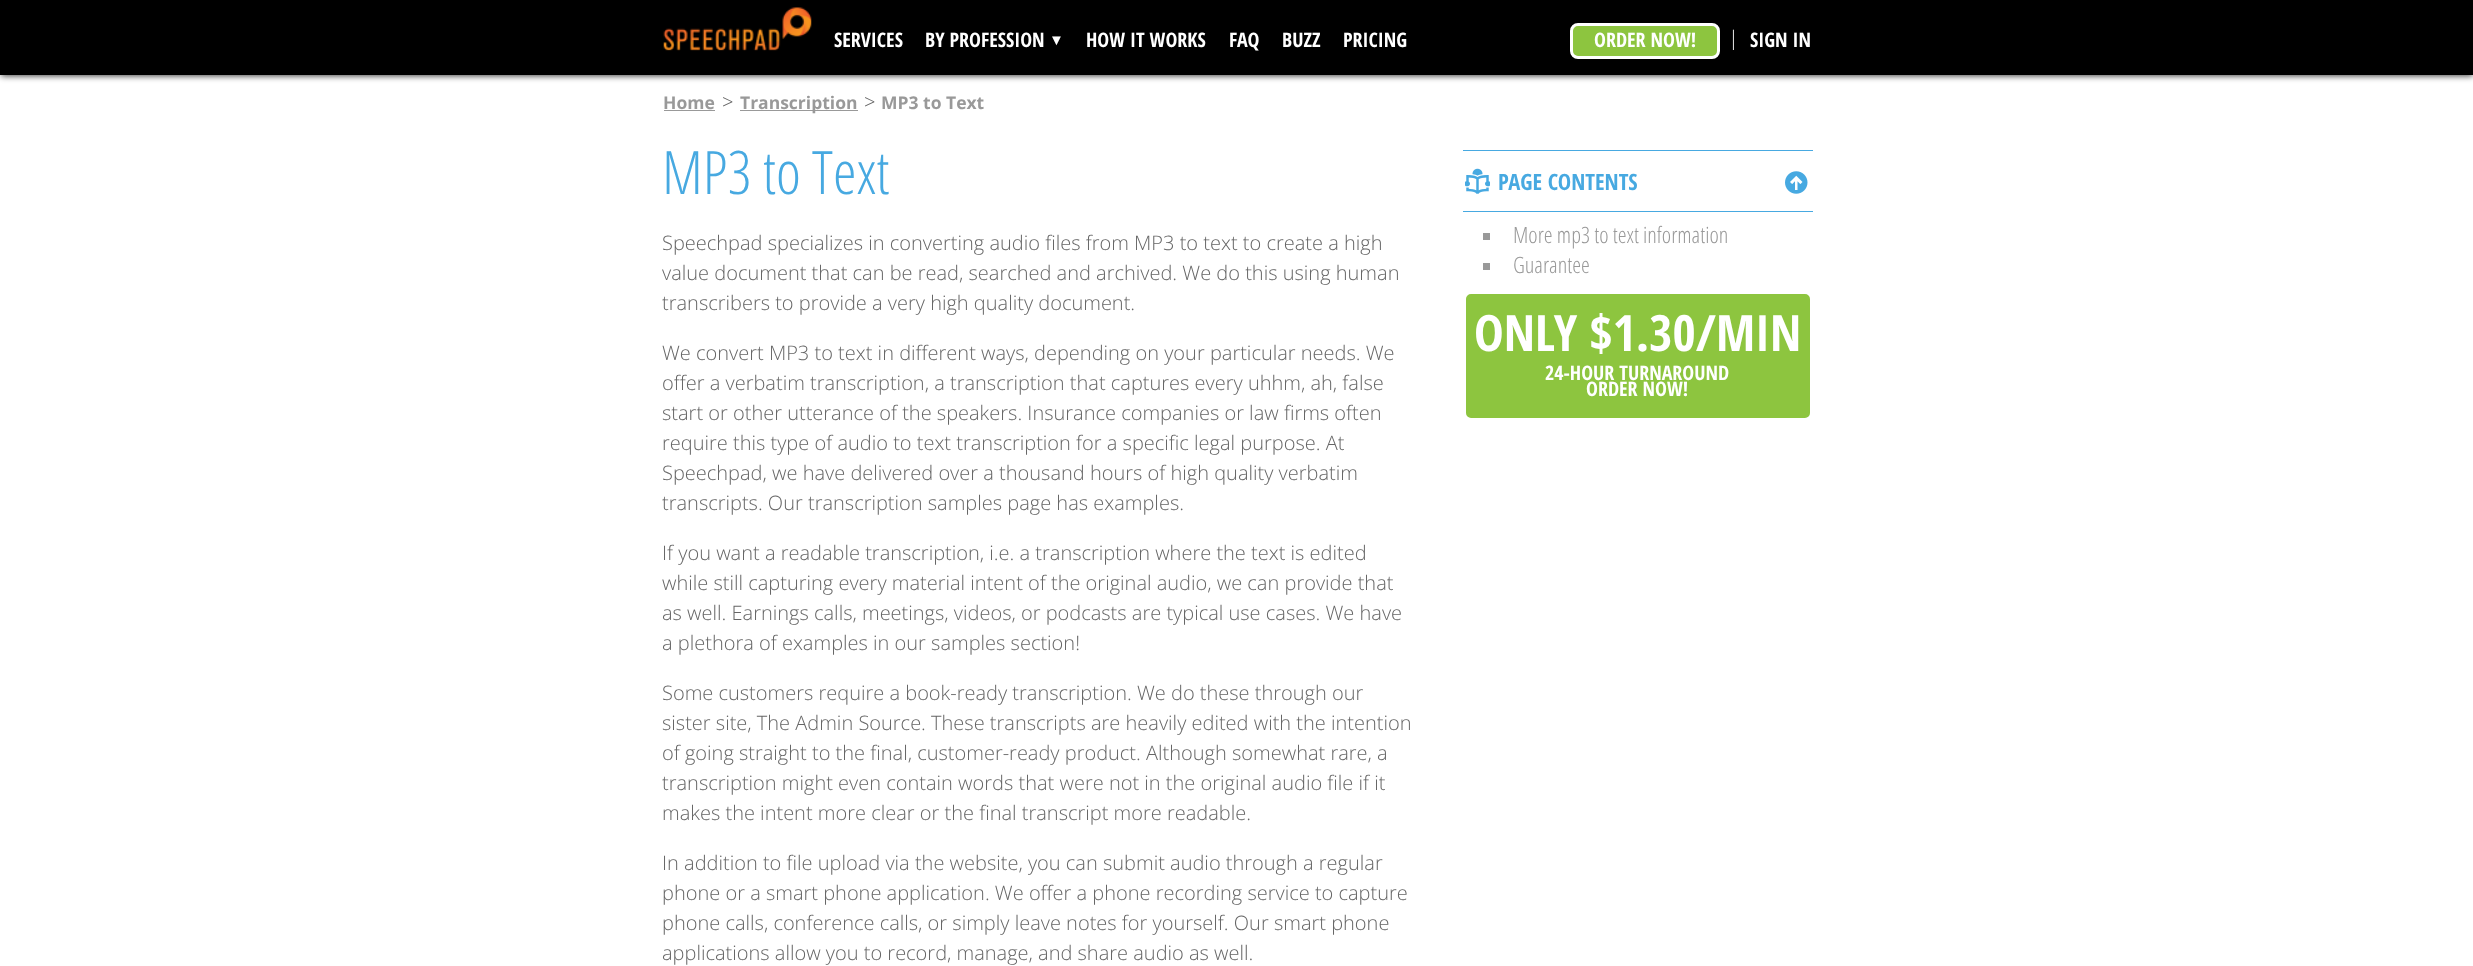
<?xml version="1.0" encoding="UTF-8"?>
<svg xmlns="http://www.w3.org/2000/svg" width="2473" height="966">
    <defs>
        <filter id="blur1" x="-50%" y="-200%" width="200%" height="500%"><feGaussianBlur stdDeviation="3"/></filter>
    </defs>
    <rect width="100%" height="100%" fill="#FFFFFF"/>
    <rect x="1" y="4" width="2472" height="72" fill="#000000" fill-opacity="0.75" filter="url(#blur1)"/>
    <rect x="0" y="0" width="2473" height="75" fill="#000000"/>
    <image x="663" y="7" width="149" height="44" href="img_01.png"/>
    <text x="834" y="47" font-family="Open Sans Condensed" font-size="20" font-weight="700" fill="#FFFFFF">SERVICES</text>
    <text x="925" y="47" font-family="Open Sans Condensed" font-size="20" font-weight="700" fill="#FFFFFF">BY PROFESSION</text>
    <text x="1049" y="45" font-family="Liberation Sans" font-size="15" font-weight="700" fill="#FFFFFF">▼</text>
    <text x="1086" y="47" font-family="Open Sans Condensed" font-size="20" font-weight="700" fill="#FFFFFF">HOW IT WORKS</text>
    <text x="1229" y="47" font-family="Open Sans Condensed" font-size="20" font-weight="700" fill="#FFFFFF">FAQ</text>
    <text x="1282" y="47" font-family="Open Sans Condensed" font-size="20" font-weight="700" fill="#FFFFFF">BUZZ</text>
    <text x="1343" y="47" font-family="Open Sans Condensed" font-size="20" font-weight="700" fill="#FFFFFF">PRICING</text>
    <rect x="1571.5" y="24.5" width="147" height="33" rx="6.5" fill="#8DC53F" stroke="#FFFFFF" stroke-width="3"/>
    <text x="1594" y="47" font-family="Open Sans Condensed" font-size="20" font-weight="700" fill="#FFFFFF">ORDER NOW!</text>
    <text x="1728" y="45" font-family="Open Sans" font-size="20" font-weight="300" fill="#FFFFFF">|</text>
    <text x="1750" y="47" font-family="Open Sans Condensed" font-size="20" font-weight="700" fill="#FFFFFF">SIGN IN</text>
    <text x="663" y="109" font-family="Open Sans" font-size="17.5" font-weight="700" fill="#999999">Home</text>
    <rect x="664" y="110" width="51" height="1" fill="#999999"/>
    <text x="722" y="109" font-family="Open Sans" font-size="20" font-weight="300" fill="#666666">&gt;</text>
    <rect x="740" y="110" width="118" height="1" fill="#999999"/>
    <text x="740" y="109" font-family="Open Sans" font-size="17.5" font-weight="700" fill="#999999">Transcription</text>
    <text x="864" y="109" font-family="Open Sans" font-size="20" font-weight="300" fill="#666666">&gt;</text>
    <text x="881" y="109" font-family="Open Sans" font-size="17.5" font-weight="700" fill="#999999">MP3 to Text</text>
    <text x="662" y="194" font-family="Open Sans Condensed" font-size="60" font-weight="300" fill="#47A9E1">MP3 to Text</text>
    <image x="1465" y="168" width="25" height="26" href="img_02.png"/>
    <rect x="1463" y="150" width="350" height="1" fill="#47A9E1"/>
    <rect x="1463" y="211" width="350" height="1" fill="#47A9E1"/>
    <text x="1498" y="190" font-family="Open Sans Condensed" font-size="22.5" font-weight="700" fill="#47A9E1">PAGE CONTENTS</text>
    <image x="1785" y="171" width="23" height="23" href="img_03.png"/>
    <rect x="1483" y="233" width="7" height="7" fill="#999999"/>
    <text x="1513" y="243" font-family="Open Sans Condensed" font-size="22.5" font-weight="300" fill="#999999">More mp3 to text information</text>
    <rect x="1483" y="263" width="7" height="7" fill="#999999"/>
    <text x="1513" y="273" font-family="Open Sans Condensed" font-size="22.5" font-weight="300" fill="#999999">Guarantee</text>
    <rect x="1464.5" y="292.5" width="347" height="127" rx="6.5" fill="#8DC53F" stroke="#FFFFFF" stroke-width="3"/>
    <text x="1474" y="351" font-family="Open Sans Condensed" font-size="50" font-weight="700" fill="#FFFFFF">ONLY $1.30/MIN</text>
    <text x="1545" y="380" font-family="Open Sans Condensed" font-size="20" font-weight="700" fill="#FFFFFF">24-HOUR TURNAROUND</text>
    <text x="1586" y="396" font-family="Open Sans Condensed" font-size="20" font-weight="700" fill="#FFFFFF">ORDER NOW!</text>
    <text font-family="Open Sans" font-size="20" font-weight="300" fill="#666666">
        <tspan x="662" y="250">Speechpad specializes in converting audio files from MP3 to text to create a high</tspan>
        <tspan x="662" y="280">value document that can be read, searched and archived. We do this using human</tspan>
        <tspan x="662" y="310">transcribers to provide a very high quality document.</tspan>
    </text>
    <text font-family="Open Sans" font-size="20" font-weight="300" fill="#666666">
        <tspan x="662" y="360">We convert MP3 to text in different ways, depending on your particular needs. We</tspan>
        <tspan x="662" y="390">offer a verbatim transcription, a transcription that captures every uhhm, ah, false</tspan>
        <tspan x="662" y="420">start or other utterance of the speakers. Insurance companies or law firms often</tspan>
        <tspan x="662" y="450">require this type of audio to text transcription for a specific legal purpose. At</tspan>
        <tspan x="662" y="480">Speechpad, we have delivered over a thousand hours of high quality verbatim</tspan>
        <tspan x="662" y="510">transcripts. Our transcription samples page has examples.</tspan>
    </text>
    <text font-family="Open Sans" font-size="20" font-weight="300" fill="#666666">
        <tspan x="662" y="560">If you want a readable transcription, i.e. a transcription where the text is edited</tspan>
        <tspan x="662" y="590">while still capturing every material intent of the original audio, we can provide that</tspan>
        <tspan x="662" y="620">as well. Earnings calls, meetings, videos, or podcasts are typical use cases. We have</tspan>
        <tspan x="662" y="650">a plethora of examples in our samples section!</tspan>
    </text>
    <text font-family="Open Sans" font-size="20" font-weight="300" fill="#666666">
        <tspan x="662" y="700">Some customers require a book-ready transcription. We do these through our</tspan>
        <tspan x="662" y="730">sister site, The Admin Source. These transcripts are heavily edited with the intention</tspan>
        <tspan x="662" y="760">of going straight to the final, customer-ready product. Although somewhat rare, a</tspan>
        <tspan x="662" y="790">transcription might even contain words that were not in the original audio file if it</tspan>
        <tspan x="662" y="820">makes the intent more clear or the final transcript more readable.</tspan>
    </text>
    <text font-family="Open Sans" font-size="20" font-weight="300" fill="#666666">
        <tspan x="662" y="870">In addition to file upload via the website, you can submit audio through a regular</tspan>
        <tspan x="662" y="900">phone or a smart phone application. We offer a phone recording service to capture</tspan>
        <tspan x="662" y="930">phone calls, conference calls, or simply leave notes for yourself. Our smart phone</tspan>
        <tspan x="662" y="960">applications allow you to record, manage, and share audio as well.</tspan>
    </text>
</svg>
